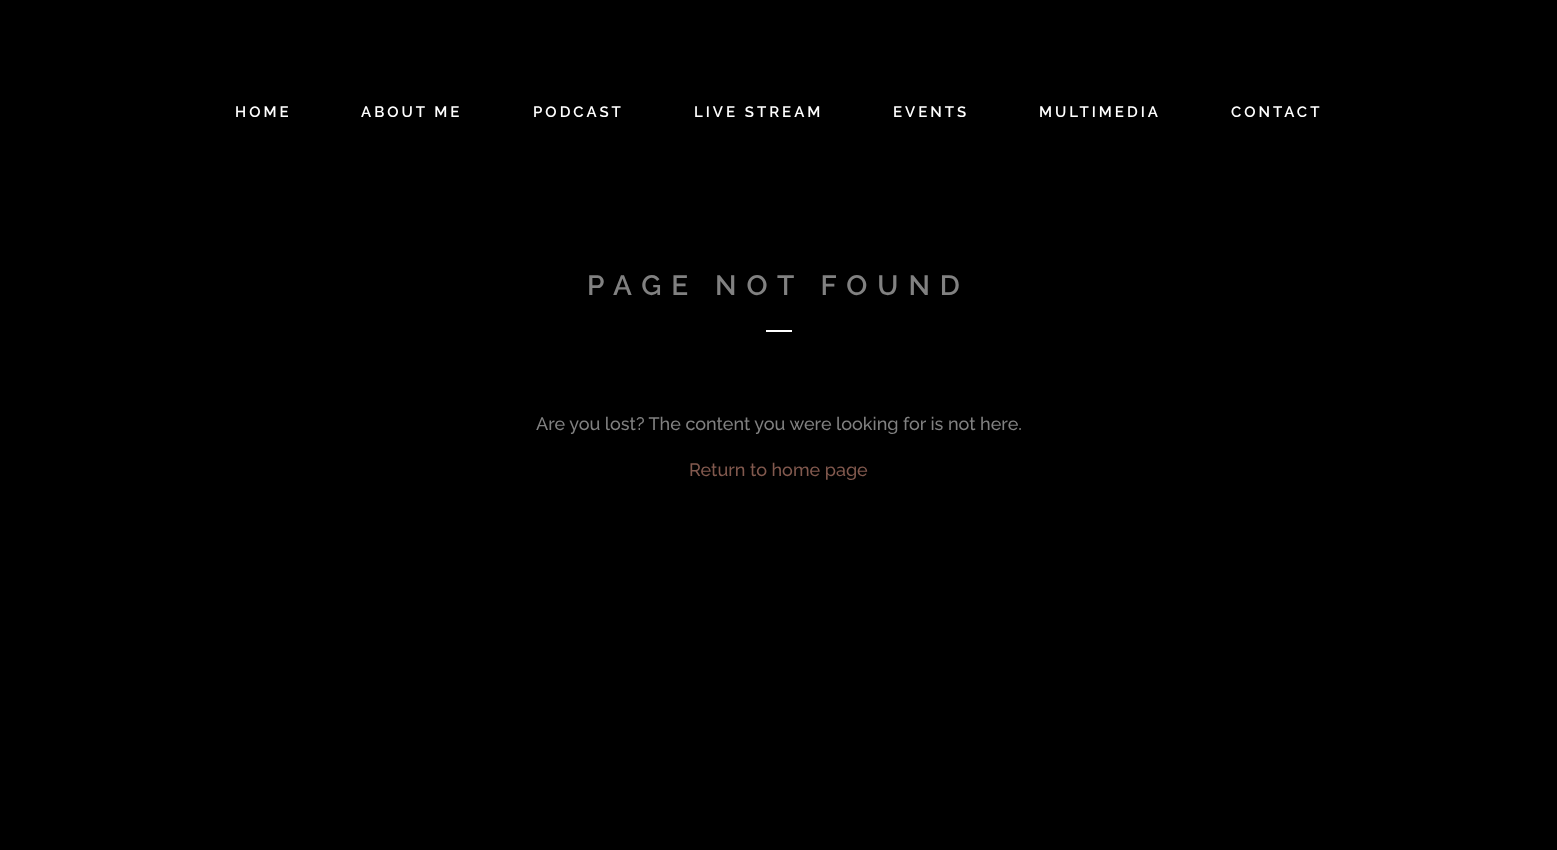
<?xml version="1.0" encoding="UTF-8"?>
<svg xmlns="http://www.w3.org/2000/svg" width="1557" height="850">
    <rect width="100%" height="100%" fill="#000000"/>
    <text x="235" y="117" font-family="Raleway" font-size="15" font-weight="600" letter-spacing="3" fill="#FFFFFF">HOME</text>
    <text x="361" y="117" font-family="Raleway" font-size="15" font-weight="600" letter-spacing="3" fill="#FFFFFF">ABOUT ME</text>
    <text x="533" y="117" font-family="Raleway" font-size="15" font-weight="600" letter-spacing="3" fill="#FFFFFF">PODCAST</text>
    <text x="694" y="117" font-family="Raleway" font-size="15" font-weight="600" letter-spacing="3" fill="#FFFFFF">LIVE STREAM</text>
    <text x="893" y="117" font-family="Raleway" font-size="15" font-weight="600" letter-spacing="3" fill="#FFFFFF">EVENTS</text>
    <text x="1039" y="117" font-family="Raleway" font-size="15" font-weight="600" letter-spacing="3" fill="#FFFFFF">MULTIMEDIA</text>
    <text x="1231" y="117" font-family="Raleway" font-size="15" font-weight="600" letter-spacing="3" fill="#FFFFFF">CONTACT</text>
    <text x="587" y="295" font-family="Raleway" font-size="28" font-weight="600" letter-spacing="10" fill="#818181">PAGE NOT FOUND</text>
    <rect x="766" y="330" width="26" height="2" fill="#FFFFFF"/>
    <text x="536" y="430" font-family="Raleway" font-size="18" font-weight="500" fill="#818181">Are you lost? The content you were looking for is not here.</text>
    <text x="689" y="476" font-family="Raleway" font-size="18" font-weight="500" fill="#82594E">Return to home page</text>
</svg>
